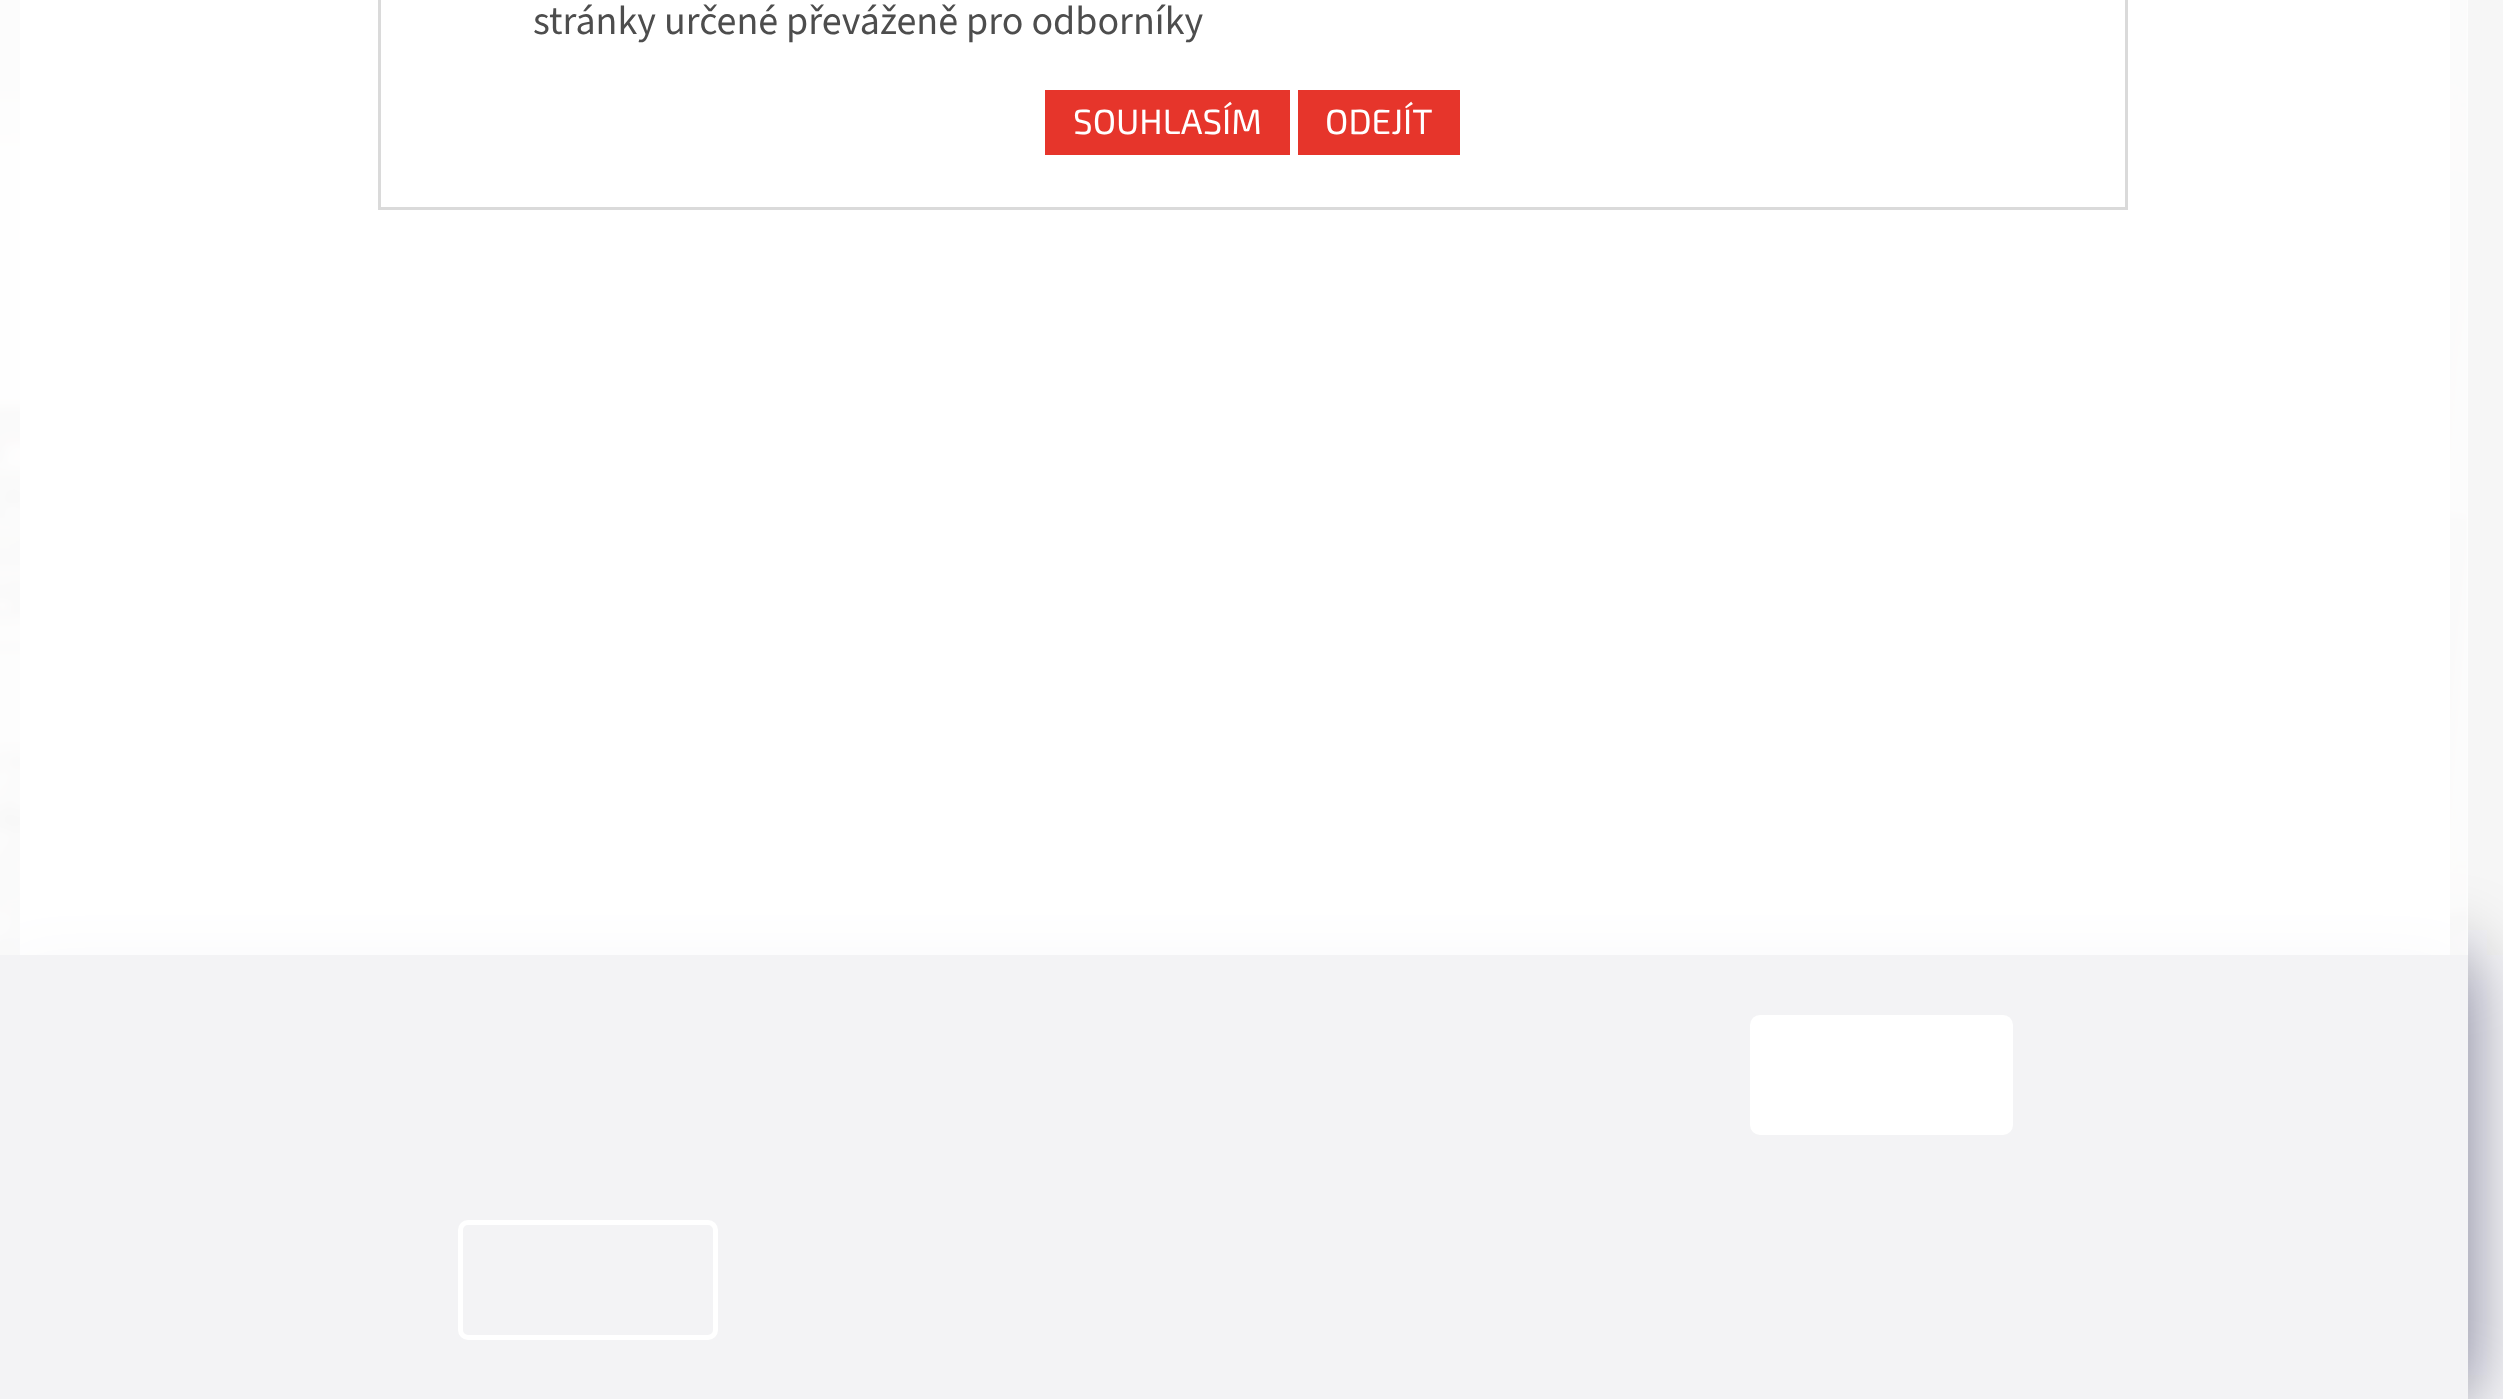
<?xml version="1.0" encoding="UTF-8"?>
<svg xmlns="http://www.w3.org/2000/svg" width="2503" height="1399">
    <defs>
        <filter id="blur1" x="-50%" y="-200%" width="200%" height="500%"><feGaussianBlur stdDeviation="37.5"/></filter>
    </defs>
    <rect width="100%" height="100%" fill="#F6F6F6"/>
    <image x="0" y="0" width="2468" height="955" href="img_01.png"/>
    <rect x="20" y="0" width="2430" height="955" fill="#FFFFFF"/>
    <rect x="0" y="955" width="2468" height="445" fill="#1B1939" fill-opacity="0.5" filter="url(#blur1)"/>
    <rect x="0" y="955" width="2468" height="444" fill="#1A1937"/>
    <rect x="1750" y="1015" width="263" height="120" rx="10" fill="#F8FAFB"/>
    <rect x="460.5" y="1222.5" width="255" height="115" rx="7.5" fill="none" stroke="#F8FAFB" stroke-width="5"/>
    <rect x="0" y="0" width="2468" height="1399" fill="#FFFFFF" fill-opacity="0.95"/>
    <rect x="379.5" y="-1.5" width="1747" height="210" fill="none" stroke="#DADADA" stroke-width="3"/>
    <text x="533" y="34" font-family="'Source Sans 3'" font-size="40" fill="#4D4D4D">stránky určené převáženě pro odborníky</text>
    <rect x="1045" y="90" width="245" height="65" fill="#E6352B"/>
    <text x="1073" y="134" font-family="'Exo 2'" font-size="35" fill="#FFFFFF">SOUHLASÍM</text>
    <rect x="1298" y="90" width="162" height="65" fill="#E6352B"/>
    <text x="1325" y="134" font-family="'Exo 2'" font-size="35" fill="#FFFFFF">ODEJÍT</text>
</svg>
